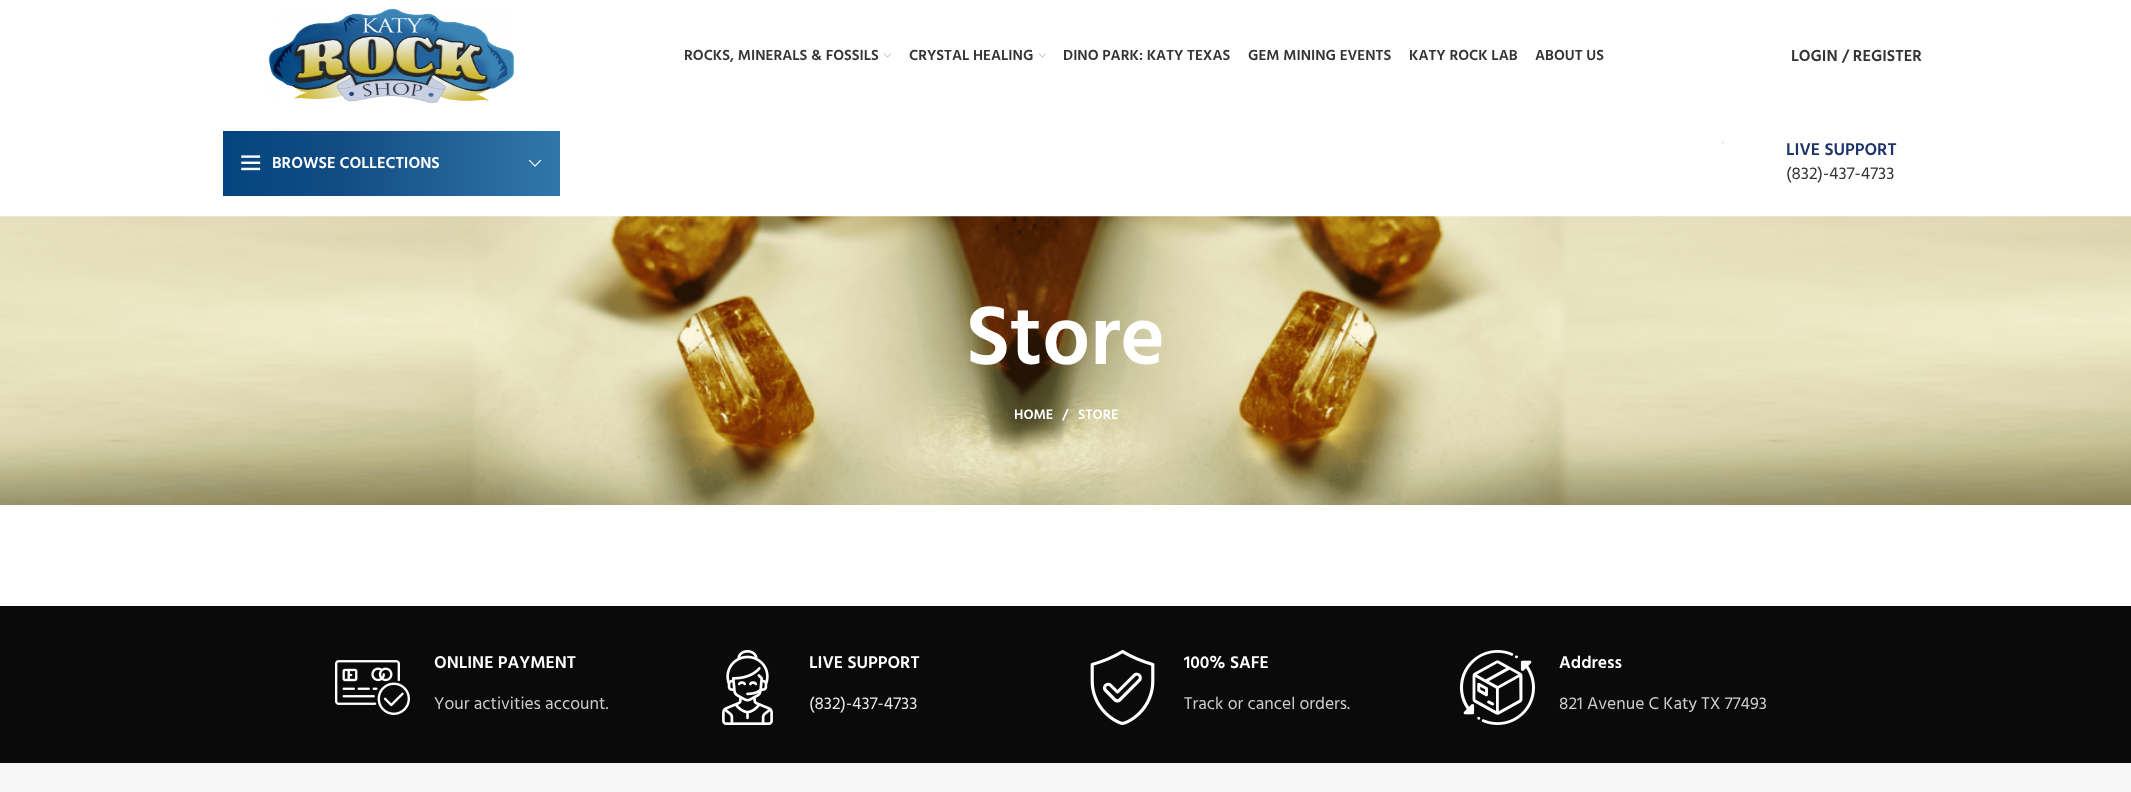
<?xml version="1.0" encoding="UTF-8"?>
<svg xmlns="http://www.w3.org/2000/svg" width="2131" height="792">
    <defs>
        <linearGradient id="g1" gradientUnits="userSpaceOnUse" x1="223" y1="164" x2="560" y2="164"><stop offset="0" stop-color="#04457F"/><stop offset="0.35" stop-color="#124C84"/><stop offset="1" stop-color="#3177AB"/></linearGradient>
    </defs>
    <rect width="100%" height="100%" fill="#FFFFFF"/>
    <image x="268" y="8" width="246" height="95" href="img_01.png"/>
    <text x="684" y="60" font-family="Hind" font-size="15" font-weight="600" fill="#333333">ROCKS, MINERALS &amp; FOSSILS</text>
    <image x="883" y="53" width="9" height="5" href="img_02.png"/>
    <text x="909" y="60" font-family="Hind" font-size="15" font-weight="600" fill="#333333">CRYSTAL HEALING</text>
    <image x="1038" y="53" width="9" height="5" href="img_02.png"/>
    <text x="1063" y="60" font-family="Hind" font-size="15" font-weight="600" fill="#333333">DINO PARK: KATY TEXAS</text>
    <text x="1248" y="60" font-family="Hind" font-size="15" font-weight="600" fill="#333333">GEM MINING EVENTS</text>
    <text x="1409" y="60" font-family="Hind" font-size="15" font-weight="600" fill="#333333">KATY ROCK LAB</text>
    <text x="1535" y="60" font-family="Hind" font-size="15" font-weight="600" fill="#333333">ABOUT US</text>
    <text x="1791" y="61" font-family="Hind" font-size="16.25" font-weight="600" fill="#333333">LOGIN / REGISTER</text>
    <rect x="223" y="131" width="337" height="65" fill="url(#g1)"/>
    <image x="241" y="155" width="20" height="16" href="img_03.png"/>
    <text x="272" y="168" font-family="Hind" font-size="16.25" font-weight="600" fill="#FFFFFF">BROWSE COLLECTIONS</text>
    <image x="528" y="159" width="14" height="8" href="img_04.png"/>
    <rect x="1721" y="141" width="3" height="3" fill="#F2F2F2"/>
    <text x="1786" y="155" font-family="Hind" font-size="17.5" font-weight="600" fill="#1F346A">LIVE SUPPORT</text>
    <text x="1786" y="179" font-family="Hind" font-size="17.5" fill="#333333">(832)-437-4733</text>
    <image x="0" y="216" width="2131" height="289" href="img_05.png"/>
    <text x="966" y="364" font-family="Hind" font-size="85" font-weight="600" fill="#FFFFFF">Store</text>
    <text x="1014" y="419" font-family="Hind" font-size="14" font-weight="600" fill="#FFFFFF">HOME</text>
    <text x="1062" y="419" font-family="Hind" font-size="14" font-weight="600" fill="#FFFFFF">/</text>
    <text x="1078" y="419" font-family="Hind" font-size="14" font-weight="600" fill="#FFFFFF">STORE</text>
    <rect x="0" y="763" width="2131" height="29" fill="#F7F7F7"/>
    <rect x="0" y="606" width="2131" height="157" fill="#0A0A0A"/>
    <image x="335" y="660" width="75" height="55" href="img_06.png"/>
    <text x="434" y="668" font-family="Hind" font-size="17.5" font-weight="600" fill="#FFFFFF">ONLINE PAYMENT</text>
    <text x="434" y="709" font-family="Hind" font-size="17.5" fill="#CECECE">Your activities account.</text>
    <image x="722" y="650" width="51" height="75" href="img_07.png"/>
    <text x="809" y="668" font-family="Hind" font-size="17.5" font-weight="600" fill="#FFFFFF">LIVE SUPPORT</text>
    <text x="809" y="709" font-family="Hind" font-size="17.5" fill="#E7E7E7">(832)-437-4733</text>
    <image x="1090" y="650" width="65" height="75" href="img_08.png"/>
    <text x="1184" y="668" font-family="Hind" font-size="17.5" font-weight="600" fill="#FFFFFF">100% SAFE</text>
    <text x="1184" y="709" font-family="Hind" font-size="17.5" fill="#CECECE">Track or cancel orders.</text>
    <image x="1460" y="650" width="75" height="75" href="img_09.png"/>
    <text x="1559" y="668" font-family="Hind" font-size="17.5" font-weight="600" fill="#FFFFFF">Address</text>
    <text x="1559" y="709" font-family="Hind" font-size="17.5" fill="#CECECE">821 Avenue C Katy TX 77493</text>
</svg>
